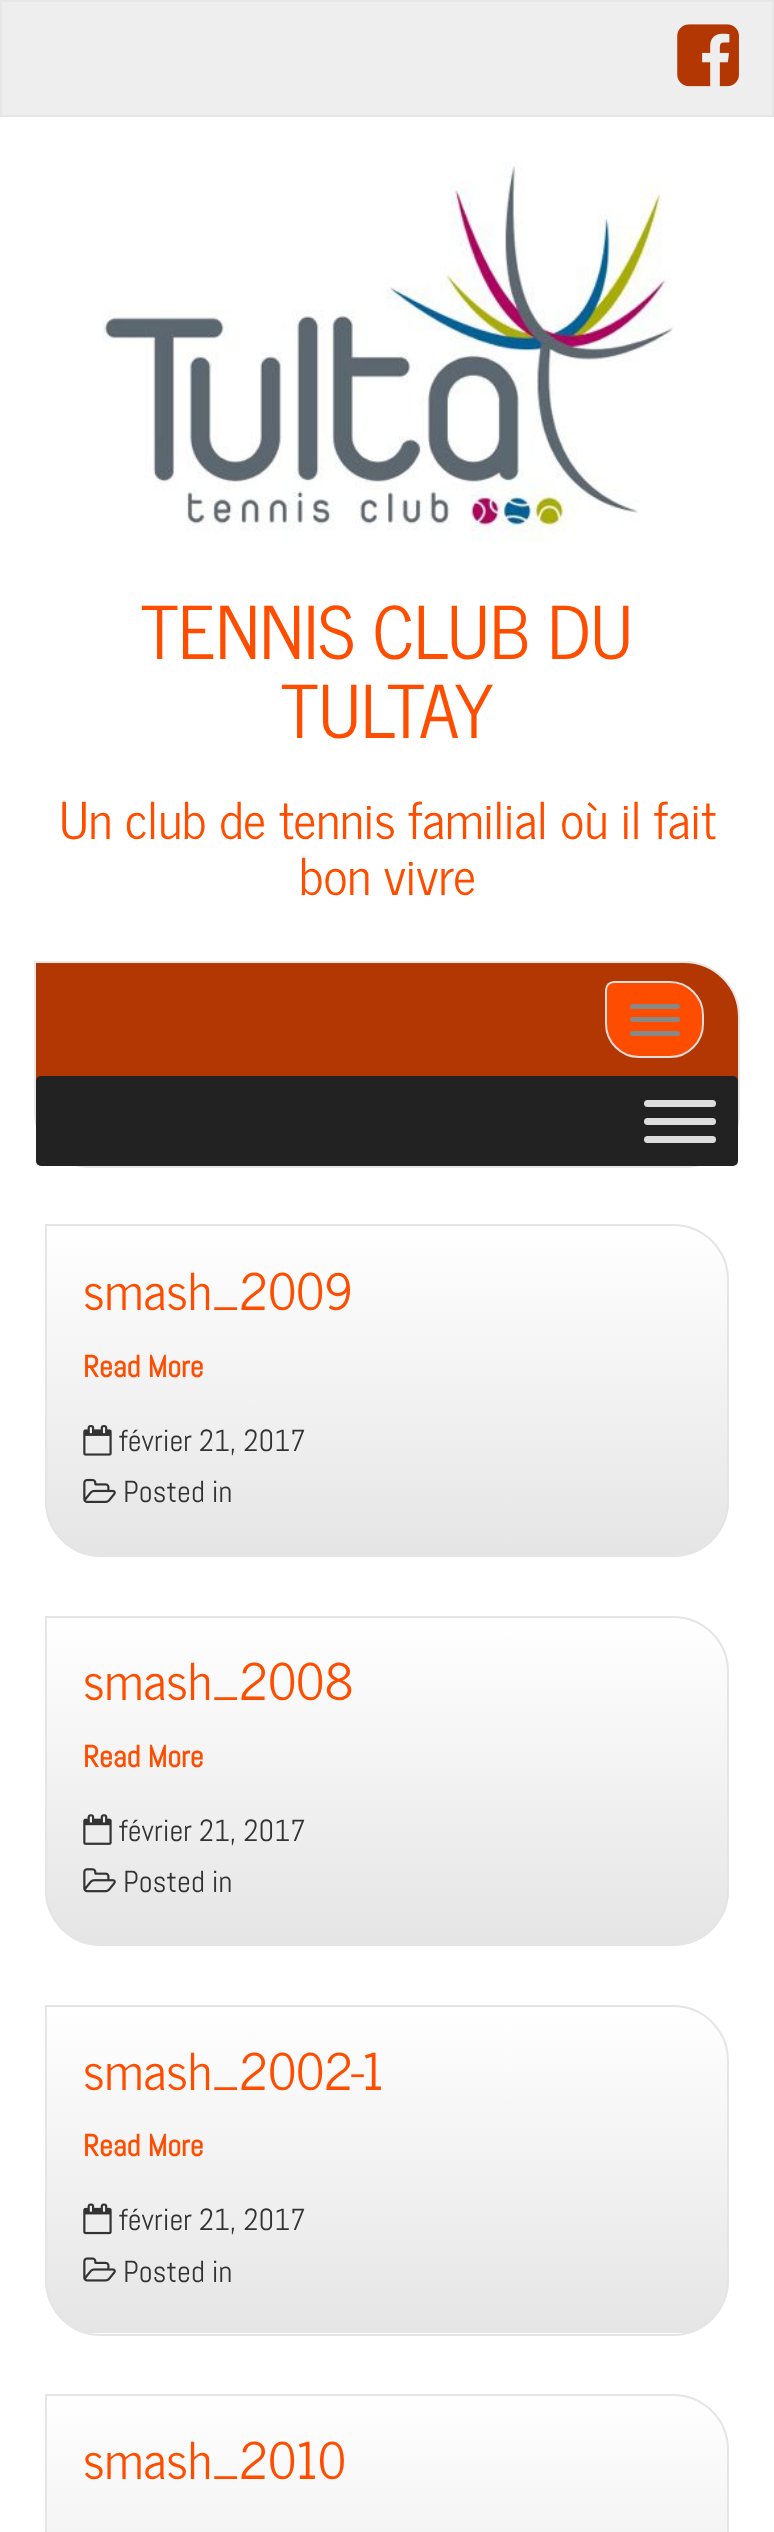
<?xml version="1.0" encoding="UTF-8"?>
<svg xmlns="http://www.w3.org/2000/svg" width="774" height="2532">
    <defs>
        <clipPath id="clip1"><path d="M 45 1224 H 673 C 704 1224 729 1249 729 1280 V 1501 C 729 1532 704 1557 673 1557 H 101 C 70 1557 45 1532 45 1501 Z"/></clipPath>
        <linearGradient id="g1" gradientUnits="userSpaceOnUse" x1="387" y1="1226" x2="387" y2="1555"><stop offset="0" stop-color="#FFFFFF"/><stop offset="1" stop-color="#E5E5E5"/></linearGradient>
        <clipPath id="clip2"><path d="M 45 1616 H 673 C 704 1616 729 1641 729 1672 V 1890 C 729 1921 704 1946 673 1946 H 101 C 70 1946 45 1921 45 1890 Z"/></clipPath>
        <linearGradient id="g2" gradientUnits="userSpaceOnUse" x1="387" y1="1618" x2="387" y2="1944"><stop offset="0" stop-color="#FFFFFF"/><stop offset="1" stop-color="#E5E5E5"/></linearGradient>
        <clipPath id="clip3"><path d="M 45 2005 H 673 C 704 2005 729 2030 729 2061 V 2280 C 729 2311 704 2336 673 2336 H 101 C 70 2336 45 2311 45 2280 Z"/></clipPath>
        <linearGradient id="g3" gradientUnits="userSpaceOnUse" x1="387" y1="2007" x2="387" y2="2333"><stop offset="0" stop-color="#FFFFFF"/><stop offset="1" stop-color="#E5E5E5"/></linearGradient>
        <clipPath id="clip4"><path d="M 45 2394 H 673 C 704 2394 729 2419 729 2450 V 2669 C 729 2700 704 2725 673 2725 H 101 C 70 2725 45 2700 45 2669 Z"/></clipPath>
        <linearGradient id="g4" gradientUnits="userSpaceOnUse" x1="387" y1="2396" x2="387" y2="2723"><stop offset="0" stop-color="#FFFFFF"/><stop offset="1" stop-color="#E5E5E5"/></linearGradient>
    </defs>
    <rect width="100%" height="100%" fill="#FFFFFF"/>
    <rect x="1" y="1" width="772" height="115" fill="#EEEEEE" stroke="#E7E7E7" stroke-width="2"/>
    <image x="677" y="24" width="62" height="63" href="img_01.png"/>
    <image x="102" y="162" width="572" height="380" href="img_02.png"/>
    <text x="141" y="659" font-family="News Cycle" font-size="72" fill="#FF4D00">TENNIS CLUB DU</text>
    <text x="281" y="738" font-family="News Cycle" font-size="72" fill="#FF4D00">TULTAY</text>
    <text x="59" y="839" font-family="News Cycle" font-size="50.4" fill="#FF4D00">Un club de tennis familial où il fait</text>
    <text x="299" y="895" font-family="News Cycle" font-size="50.4" fill="#FF4D00">bon vivre</text>
    <path d="M 35 962 H 684 C 714.5 962 739 986.5 739 1017 V 1112 C 739 1142.5 714.5 1167 684 1167 H 90 C 59.5 1167 35 1142.5 35 1112 Z" fill="#B23702" stroke="#E7E7E7" stroke-width="2"/>
    <path d="M 614 982 H 670 C 688 982 703 997 703 1015 V 1024 C 703 1042 688 1057 670 1057 H 639 C 621 1057 606 1042 606 1024 V 990 C 606 985.5 609.5 982 614 982 Z" fill="#FF4D00" stroke="#DDDDDD" stroke-width="2"/>
    <rect x="630" y="1004" width="50" height="5" rx="2.5" fill="#888888"/>
    <rect x="630" y="1017" width="50" height="5" rx="2.5" fill="#888888"/>
    <rect x="630" y="1031" width="50" height="5" rx="2.5" fill="#888888"/>
    <rect x="36" y="1076" width="702" height="90" rx="5" fill="#222222"/>
    <rect x="644" y="1100" width="72" height="7" rx="3.5" fill="#DDDDDD"/>
    <rect x="644" y="1118" width="72" height="7" rx="3.5" fill="#DDDDDD"/>
    <rect x="644" y="1136" width="72" height="7" rx="3.5" fill="#DDDDDD"/>
    <g clip-path="url(#clip1)">
        <rect x="45" y="1226" width="684" height="329" fill="url(#g1)"/>
    </g>
    <path d="M 46 1225 H 673 C 703.5 1225 728 1249.5 728 1280 V 1501 C 728 1531.5 703.5 1556 673 1556 H 101 C 70.5 1556 46 1531.5 46 1501 Z" fill="none" stroke="#E5E5E5" stroke-width="2"/>
    <text x="83" y="1310" font-family="News Cycle" font-size="50.4" fill="#FF4D00">smash_2009</text>
    <text x="83" y="1377" font-family="Abel" font-size="30.5" font-weight="700" fill="#FF4D00">Read More</text>
    <image x="83" y="1425" width="29" height="31" href="img_03.png"/>
    <text x="119" y="1451" font-family="Abel" font-size="30.5" fill="#333333">février 21, 2017</text>
    <image x="83" y="1478" width="33" height="25" href="img_04.png"/>
    <text x="123" y="1502" font-family="Abel" font-size="30.5" fill="#333333">Posted in</text>
    <g clip-path="url(#clip2)">
        <rect x="45" y="1618" width="684" height="326" fill="url(#g2)"/>
    </g>
    <path d="M 46 1617 H 673 C 703.5 1617 728 1641.5 728 1672 V 1890 C 728 1920.5 703.5 1945 673 1945 H 101 C 70.5 1945 46 1920.5 46 1890 Z" fill="none" stroke="#E5E5E5" stroke-width="2"/>
    <text x="83" y="1700" font-family="News Cycle" font-size="50.4" fill="#FF4D00">smash_2008</text>
    <text x="83" y="1767" font-family="Abel" font-size="30.5" font-weight="700" fill="#FF4D00">Read More</text>
    <image x="83" y="1814" width="29" height="31" href="img_05.png"/>
    <text x="119" y="1841" font-family="Abel" font-size="30.5" fill="#333333">février 21, 2017</text>
    <image x="83" y="1868" width="33" height="25" href="img_06.png"/>
    <text x="123" y="1892" font-family="Abel" font-size="30.5" fill="#333333">Posted in</text>
    <g clip-path="url(#clip3)">
        <rect x="45" y="2007" width="684" height="326" fill="url(#g3)"/>
    </g>
    <path d="M 46 2006 H 673 C 703.5 2006 728 2030.5 728 2061 V 2280 C 728 2310.5 703.5 2335 673 2335 H 101 C 70.5 2335 46 2310.5 46 2280 Z" fill="none" stroke="#E5E5E5" stroke-width="2"/>
    <text x="83" y="2090" font-family="News Cycle" font-size="50.4" fill="#FF4D00">smash_2002-1</text>
    <text x="83" y="2156" font-family="Abel" font-size="30.5" font-weight="700" fill="#FF4D00">Read More</text>
    <image x="83" y="2203" width="29" height="32" href="img_07.png"/>
    <text x="119" y="2230" font-family="Abel" font-size="30.5" fill="#333333">février 21, 2017</text>
    <image x="83" y="2257" width="33" height="25" href="img_08.png"/>
    <text x="123" y="2282" font-family="Abel" font-size="30.5" fill="#333333">Posted in</text>
    <g clip-path="url(#clip4)">
        <rect x="47" y="2396" width="682" height="136" fill="url(#g4)"/>
    </g>
    <path d="M 46 2395 H 673 C 703.5 2395 728 2419.5 728 2450 V 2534 C 728 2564.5 703.5 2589 673 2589 H 101 C 70.5 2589 46 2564.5 46 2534 Z" fill="none" stroke="#E5E5E5" stroke-width="2"/>
    <text x="83" y="2479" font-family="News Cycle" font-size="50.4" fill="#FF4D00">smash_2010</text>
</svg>
